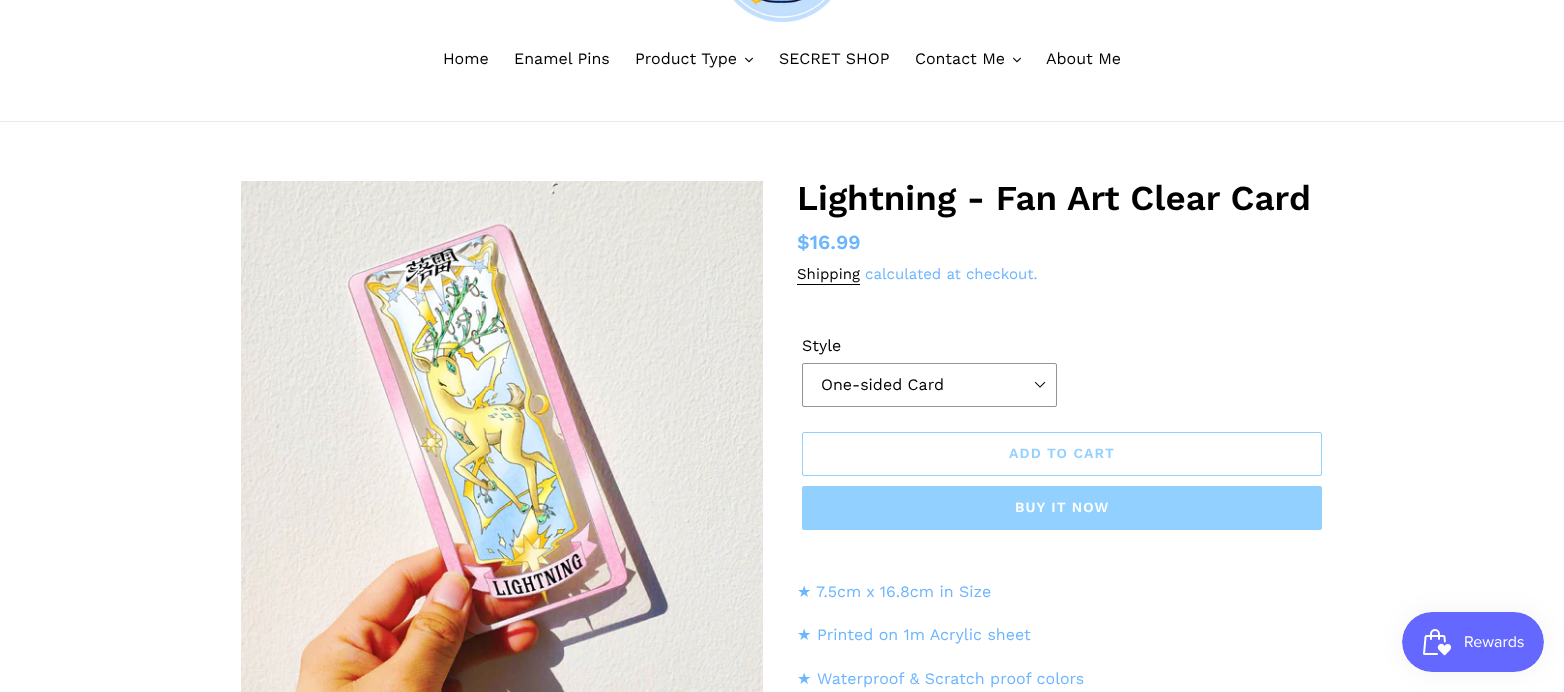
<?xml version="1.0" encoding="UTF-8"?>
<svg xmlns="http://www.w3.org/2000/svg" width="1564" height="692">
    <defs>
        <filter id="blur1" x="-50%" y="-200%" width="200%" height="500%"><feGaussianBlur stdDeviation="12.5"/></filter>
    </defs>
    <rect width="100%" height="100%" fill="#FFFFFF"/>
    <image x="733" y="0" width="98" height="22" href="img_01.png"/>
    <rect x="0" y="121" width="1564" height="1" fill="#E8E9EB"/>
    <text x="443" y="64" font-family="Work Sans" font-size="16" fill="#000000">Home</text>
    <text x="514" y="64" font-family="Work Sans" font-size="16" fill="#000000">Enamel Pins</text>
    <text x="635" y="64" font-family="Work Sans" font-size="16" fill="#000000">Product Type</text>
    <image x="745" y="57" width="8" height="6" href="img_02.png"/>
    <text x="779" y="64" font-family="Work Sans" font-size="16" fill="#000000">SECRET SHOP</text>
    <text x="915" y="64" font-family="Work Sans" font-size="16" fill="#000000">Contact Me</text>
    <image x="1013" y="57" width="8" height="6" href="img_02.png"/>
    <text x="1046" y="64" font-family="Work Sans" font-size="16" fill="#000000">About Me</text>
    <image x="241" y="181" width="522" height="511" href="img_03.png"/>
    <text x="797" y="210" font-family="Work Sans" font-size="35" font-weight="600" fill="#000000">Lightning - Fan Art Clear Card</text>
    <text x="797" y="249" font-family="Work Sans" font-size="20" font-weight="600" fill="#6CB5FF">$16.99</text>
    <text x="797" y="279" font-family="Work Sans" font-size="15" fill="#000000">Shipping</text>
    <rect x="797" y="284" width="63" height="1" fill="#000000"/>
    <text x="865" y="279" font-family="Work Sans" font-size="15" fill="#6CB5FF">calculated at checkout.</text>
    <text x="802" y="351" font-family="Work Sans" font-size="16" fill="#000000">Style</text>
    <image x="1034" y="381" width="12" height="7" href="img_04.png"/>
    <rect x="802.5" y="363.5" width="254" height="43" rx="1.5" fill="none" stroke="#949494"/>
    <text x="821" y="390" font-family="Work Sans" font-size="16" fill="#000000">One-sided Card</text>
    <rect x="802.5" y="432.5" width="519" height="43" rx="1.5" fill="none" stroke="#92D1FF"/>
    <text x="1009" y="458" font-family="Work Sans" font-size="14" font-weight="600" letter-spacing="1.1" fill="#92D1FF">ADD TO CART</text>
    <rect x="802" y="486" width="520" height="44" rx="2" fill="#92D1FF"/>
    <text x="1015" y="512" font-family="Work Sans" font-size="14" font-weight="600" letter-spacing="1.1" fill="#FFFFFF">BUY IT NOW</text>
    <text x="797" y="597" font-family="DejaVu Sans" font-size="16" fill="#6CB5FF">★</text>
    <text x="816" y="597" font-family="Work Sans" font-size="16" fill="#6CB5FF">7.5cm x 16.8cm in Size</text>
    <text x="797" y="640" font-family="DejaVu Sans" font-size="16" fill="#6CB5FF">★</text>
    <text x="817" y="640" font-family="Work Sans" font-size="16" fill="#6CB5FF">Printed on 1m Acrylic sheet</text>
    <text x="797" y="684" font-family="DejaVu Sans" font-size="16" fill="#6CB5FF">★</text>
    <text x="817" y="684" font-family="Work Sans" font-size="16" fill="#6CB5FF">Waterproof &amp; Scratch proof colors</text>
    <rect x="1402" y="612" width="142" height="60" rx="30" fill="#000000" fill-opacity="0.05" filter="url(#blur1)"/>
    <image x="1402" y="612" width="142" height="60" href="img_05.png"/>
</svg>
